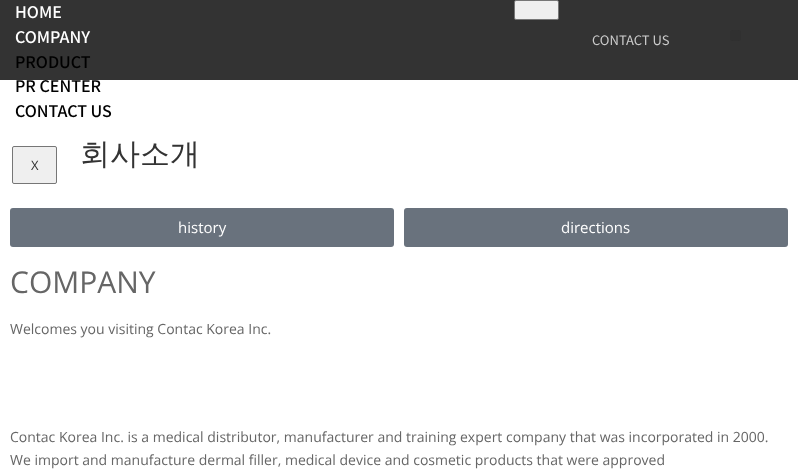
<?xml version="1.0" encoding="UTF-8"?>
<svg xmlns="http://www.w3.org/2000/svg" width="798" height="470">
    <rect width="100%" height="100%" fill="#FFFFFF"/>
    <rect x="0" y="0" width="798" height="80" fill="#333333"/>
    <text font-family="Noto Sans KR" font-size="16" font-weight="500" fill="#FFFFFF">
        <tspan x="15" y="18">HOME</tspan>
        <tspan x="15" y="43">COMPANY</tspan>
    </text>
    <text font-family="Noto Sans KR" font-size="16" font-weight="500" fill="#000000">
        <tspan x="15" y="68">PRODUCT</tspan>
        <tspan x="15" y="92">PR CENTER</tspan>
        <tspan x="15" y="117">CONTACT US</tspan>
    </text>
    <rect x="12.5" y="146.5" width="44" height="37" rx="1.5" fill="#EFEFEF" stroke="#767676"/>
    <text x="31" y="170" font-family="Open Sans" font-size="13" fill="#333333">X</text>
    <rect x="514.5" y="0.5" width="44" height="19" rx="1.5" fill="#EFEFEF" stroke="#767676"/>
    <text x="592" y="45" font-family="Noto Sans KR" font-size="13" fill="#CCCCCC">CONTACT US</text>
    <rect x="730" y="30" width="11" height="11" rx="3" fill="#303030"/>
    <text x="80" y="164" font-family="WenQuanYi Zen Hei" font-size="30" font-weight="500" fill="#333333">회사소개</text>
    <rect x="10" y="208" width="384" height="39" rx="3" fill="#69727D"/>
    <text x="178" y="233" font-family="Open Sans" font-size="15" fill="#FFFFFF">history</text>
    <rect x="404" y="208" width="384" height="39" rx="3" fill="#69727D"/>
    <text x="561" y="233" font-family="Open Sans" font-size="15" fill="#FFFFFF">directions</text>
    <text x="10" y="293" font-family="Open Sans" font-size="30" fill="#666666">COMPANY</text>
    <text x="10" y="334" font-family="Open Sans" font-size="14" fill="#666666">Welcomes you visiting Contac Korea Inc.</text>
    <text font-family="Open Sans" font-size="14" fill="#666666">
        <tspan x="10" y="442">Contac Korea Inc. is a medical distributor, manufacturer and training expert company that was incorporated in 2000.</tspan>
        <tspan x="10" y="465">We import and manufacture dermal filler, medical device and cosmetic products that were approved</tspan>
    </text>
</svg>
